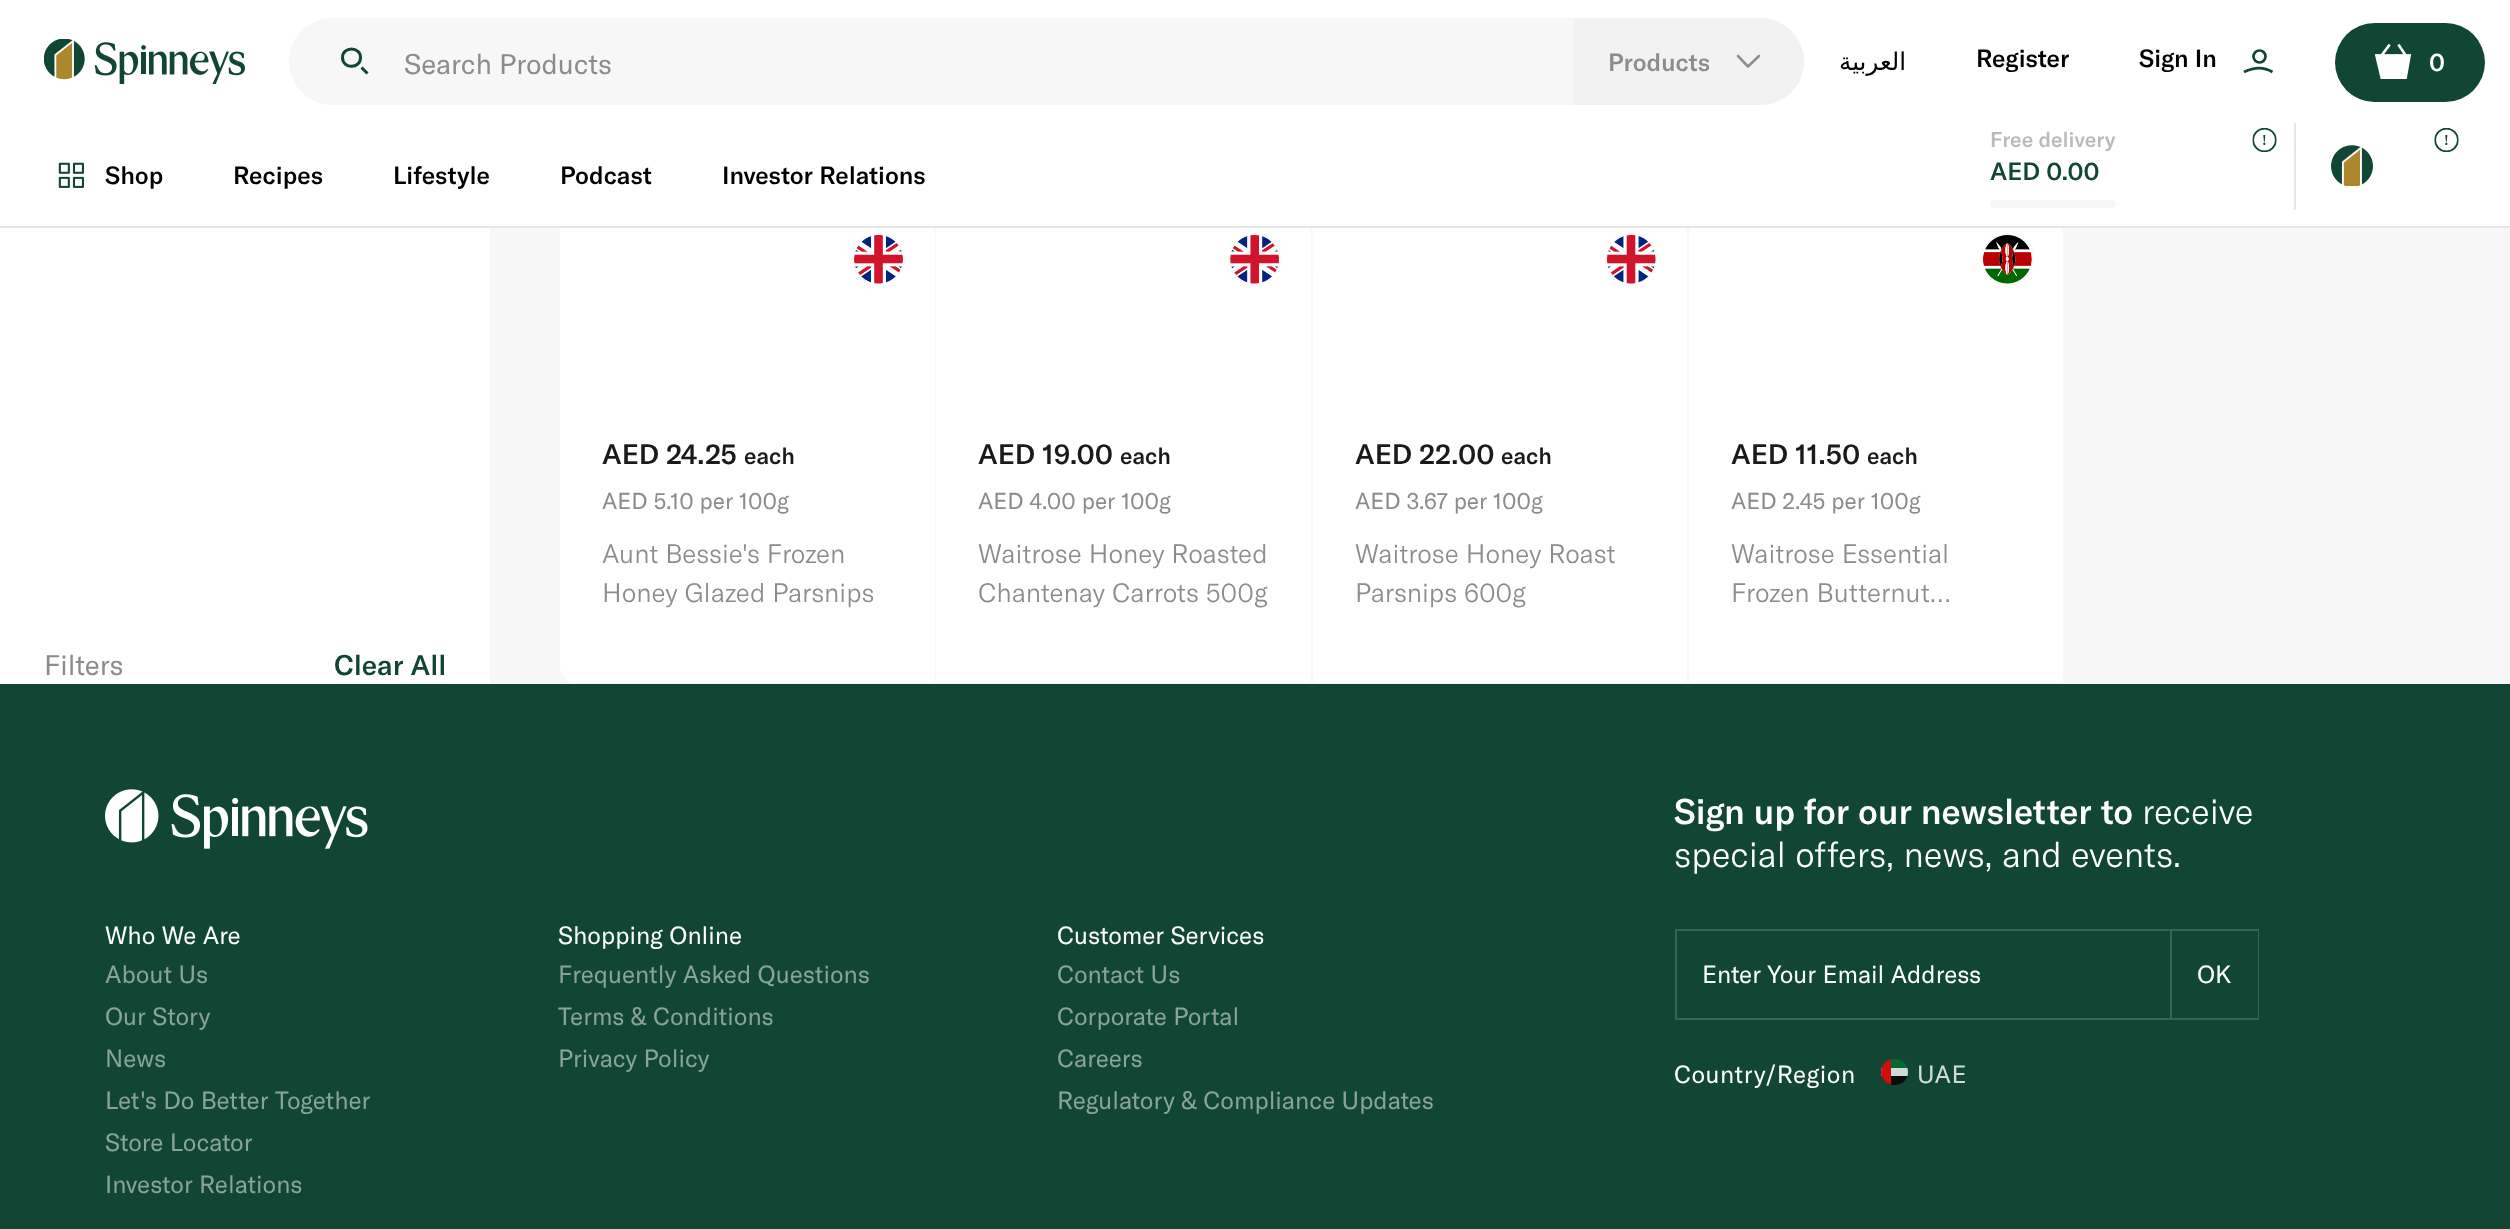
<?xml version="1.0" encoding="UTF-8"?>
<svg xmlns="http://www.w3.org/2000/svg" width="2510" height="1229">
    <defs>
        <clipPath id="clip1"><rect x="560" y="-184" width="1881" height="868" rx="18"/></clipPath>
        <clipPath id="clip2"><rect x="1881" y="1059" width="27" height="26" rx="13"/></clipPath>
    </defs>
    <rect width="100%" height="100%" fill="#F7F7F7"/>
    <path d="M 578 -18 H 936 V 684 H 578 C 568 684 560 676 560 666 V 0 C 560 -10 568 -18 578 -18 Z" fill="#FFFFFF"/>
    <rect x="0" y="0" width="2510" height="226" fill="#FFFFFF"/>
    <image x="44" y="39" width="201" height="45" href="img_01.png"/>
    <rect x="289" y="18" width="1515" height="87" rx="43.5" fill="#F7F7F7"/>
    <path d="M 361.5 67.5 L 367.5 73.5 Z M 342.5 57.5 C 342.5 46 360.5 46 360.5 57.5 C 360.5 69.5 342.5 69 342.5 57.5 Z" fill="none" stroke="#124634" stroke-width="3"/>
    <text x="404" y="74" font-family="GT America" font-size="28" fill="#8C8C8C">Search Products</text>
    <path d="M 1573 18 H 1760.5 C 1784.5 18 1804 37.5 1804 61.5 C 1804 85.5 1784.5 105 1760.5 105 H 1573 Z" fill="#F2F2F2"/>
    <text x="1608" y="71" font-family="GT America" font-size="24.5" font-weight="500" fill="#8C8C8C">Products</text>
    <path d="M 1759 56 L 1748 66.5 L 1738 56" fill="none" stroke="#8F8F8F" stroke-width="2.6" stroke-linecap="round" stroke-linejoin="round"/>
    <text x="1906" y="70" font-family="DejaVu Sans" font-size="24.5" direction="rtl" fill="#000000">العربية</text>
    <text x="1976" y="67" font-family="GT America" font-size="24.5" font-weight="500" fill="#000000">Register</text>
    <text x="2139" y="67" font-family="GT America" font-size="24.5" font-weight="500" fill="#000000">Sign In</text>
    <circle cx="2259.5" cy="56.5" r="6" fill="none" stroke="#114634" stroke-width="2.7"/>
    <path d="M 2244 72 C 2244 72 2258 63.5 2272.5 72" fill="none" stroke="#114634" stroke-width="2.7"/>
    <rect x="2335" y="23" width="150" height="79" rx="39.5" fill="#124634"/>
    <image x="2375" y="44" width="37" height="35" href="img_02.png"/>
    <text x="2429" y="71" font-family="GT America" font-size="24.5" font-weight="500" fill="#FFFFFF">0</text>
    <rect x="0" y="226" width="2510" height="2" fill="#E6E6E6"/>
    <image x="58" y="162" width="26" height="26" href="img_03.png"/>
    <text x="105" y="184" font-family="GT America" font-size="24.5" font-weight="500" fill="#000000">Shop</text>
    <text x="233" y="184" font-family="GT America" font-size="24.5" font-weight="500" fill="#000000">Recipes</text>
    <text x="393" y="184" font-family="GT America" font-size="24.5" font-weight="500" fill="#000000">Lifestyle</text>
    <text x="560" y="184" font-family="GT America" font-size="24.5" font-weight="500" fill="#000000">Podcast</text>
    <text x="722" y="184" font-family="GT America" font-size="24.5" font-weight="500" fill="#000000">Investor Relations</text>
    <rect x="2294" y="123" width="2" height="87" fill="#E6E6E6"/>
    <text x="1990" y="147" font-family="GT America" font-size="21" font-weight="500" fill="#BABABA">Free delivery</text>
    <text x="1990" y="180" font-family="GT America" font-size="24.5" font-weight="500" fill="#124634">AED 0.00</text>
    <rect x="1990" y="200" width="126" height="8" rx="4" fill="#F7F7F7"/>
    <image x="2252" y="128" width="25" height="24" href="img_04.png"/>
    <image x="2434" y="128" width="25" height="24" href="img_05.png"/>
    <image x="2331" y="145" width="42" height="41" href="img_06.png"/>
    <rect x="935" y="228" width="1" height="456" fill="#F7F7F7"/>
    <g clip-path="url(#clip1)">
        <rect x="572" y="683" width="364" height="1" fill="#F7F7F7"/>
    </g>
    <path d="M 878 233 C 912 233 915 282 879 285 C 874 285 868 284 863 281 C 842 266 853 233 878 233 Z" fill="#FAFAFA"/>
    <image x="854" y="235" width="49" height="49" href="img_07.png"/>
    <text x="602" y="464" font-family="GT America" font-size="28" font-weight="500" fill="#1A1A1A">AED 24.25</text>
    <text x="744" y="464" font-family="GT America" font-size="22.75" font-weight="500" fill="#1A1A1A">each</text>
    <text x="602" y="509" font-family="GT America" font-size="22.75" fill="#8C8C8C">AED 5.10 per 100g</text>
    <text font-family="GT America" font-size="26.25" font-weight="300" fill="#8C8C8C">
        <tspan x="602" y="563">Aunt Bessie's Frozen</tspan>
        <tspan x="602" y="602">Honey Glazed Parsnips</tspan>
    </text>
    <rect x="936" y="228" width="375" height="455" fill="#FFFFFF"/>
    <circle cx="1255" cy="259" r="25" fill="none" stroke="#FAFAFA" stroke-width="2"/>
    <image x="1230" y="235" width="49" height="49" href="img_08.png"/>
    <text x="978" y="464" font-family="GT America" font-size="28" font-weight="500" fill="#1A1A1A">AED 19.00</text>
    <text x="1120" y="464" font-family="GT America" font-size="22.75" font-weight="500" fill="#1A1A1A">each</text>
    <text x="978" y="509" font-family="GT America" font-size="22.75" fill="#8C8C8C">AED 4.00 per 100g</text>
    <text font-family="GT America" font-size="26.25" font-weight="300" fill="#8C8C8C">
        <tspan x="978" y="563">Waitrose Honey Roasted</tspan>
        <tspan x="978" y="602">Chantenay Carrots 500g</tspan>
    </text>
    <rect x="1313" y="228" width="374" height="455" fill="#FFFFFF"/>
    <image x="1312" y="228" width="294" height="48" href="img_09.png"/>
    <circle cx="1631" cy="259" r="25" fill="none" stroke="#FAFAFA" stroke-width="2"/>
    <image x="1607" y="235" width="49" height="49" href="img_10.png"/>
    <text x="1355" y="464" font-family="GT America" font-size="28" font-weight="500" fill="#1A1A1A">AED 22.00</text>
    <text x="1501" y="464" font-family="GT America" font-size="22.75" font-weight="500" fill="#1A1A1A">each</text>
    <text x="1355" y="509" font-family="GT America" font-size="22.75" fill="#8C8C8C">AED 3.67 per 100g</text>
    <text font-family="GT America" font-size="26.25" font-weight="300" fill="#8C8C8C">
        <tspan x="1355" y="563">Waitrose Honey Roast</tspan>
        <tspan x="1355" y="602">Parsnips 600g</tspan>
    </text>
    <rect x="1689" y="228" width="374" height="455" fill="#FFFFFF"/>
    <rect x="1982" y="234" width="51" height="50" rx="25" fill="none" stroke="#FAFAFA" stroke-width="2"/>
    <image x="1983" y="235" width="49" height="49" href="img_11.png"/>
    <text x="1731" y="464" font-family="GT America" font-size="28" font-weight="500" fill="#1A1A1A">AED 11.50</text>
    <text x="1867" y="464" font-family="GT America" font-size="22.75" font-weight="500" fill="#1A1A1A">each</text>
    <text x="1731" y="509" font-family="GT America" font-size="22.75" fill="#8C8C8C">AED 2.45 per 100g</text>
    <text font-family="GT America" font-size="26.25" font-weight="300" fill="#8C8C8C">
        <tspan x="1731" y="563">Waitrose Essential</tspan>
        <tspan x="1731" y="602">Frozen Butternut…</tspan>
    </text>
    <rect x="0" y="228" width="490" height="456" fill="#FFFFFF"/>
    <text x="44" y="675" font-family="GT America" font-size="28" fill="#8C8C8C">Filters</text>
    <text x="334" y="675" font-family="GT America" font-size="28" font-weight="500" fill="#124634">Clear All</text>
    <rect x="0" y="684" width="2510" height="545" fill="#124634"/>
    <image x="105" y="789" width="263" height="60" href="img_12.png"/>
    <text x="105" y="944" font-family="GT America" font-size="24.5" fill="#FFFFFF">Who We Are</text>
    <text font-family="GT America" font-size="24.5" fill="#89A39A">
        <tspan x="105" y="983">About Us</tspan>
        <tspan x="105" y="1025">Our Story</tspan>
        <tspan x="105" y="1067">News</tspan>
        <tspan x="105" y="1109">Let's Do Better Together</tspan>
        <tspan x="105" y="1151">Store Locator</tspan>
        <tspan x="105" y="1193">Investor Relations</tspan>
    </text>
    <text x="558" y="944" font-family="GT America" font-size="24.5" fill="#FFFFFF">Shopping Online</text>
    <text font-family="GT America" font-size="24.5" fill="#89A39A">
        <tspan x="558" y="983">Frequently Asked Questions</tspan>
        <tspan x="558" y="1025">Terms &amp; Conditions</tspan>
        <tspan x="558" y="1067">Privacy Policy</tspan>
    </text>
    <text x="1057" y="944" font-family="GT America" font-size="24.5" fill="#FFFFFF">Customer Services</text>
    <text font-family="GT America" font-size="24.5" fill="#89A39A">
        <tspan x="1057" y="983">Contact Us</tspan>
        <tspan x="1057" y="1025">Corporate Portal</tspan>
        <tspan x="1057" y="1067">Careers</tspan>
        <tspan x="1057" y="1109">Regulatory &amp; Compliance Updates</tspan>
    </text>
    <text x="1674" y="824" font-family="GT America" font-size="35" font-weight="500" fill="#FFFFFF">Sign up for our newsletter to</text>
    <text x="2142" y="824" font-family="GT America" font-size="35" font-weight="300" fill="#FFFFFF">receive</text>
    <text x="1674" y="867" font-family="GT America" font-size="35" font-weight="300" fill="#FFFFFF">special offers, news, and events.</text>
    <rect x="1676" y="930" width="495" height="89" fill="none" stroke="#386454" stroke-width="2"/>
    <text x="1702" y="983" font-family="GT America" font-size="24.5" fill="#FFFFFF">Enter Your Email Address</text>
    <path d="M 2172 929 H 2259 L 2258 931 H 2172 Z" fill="#386454"/>
    <path d="M 2259 929 V 1020 L 2258 1018 V 931 Z" fill="#FFFFFF" fill-opacity="0.16"/>
    <path d="M 2259 1020 H 2172 V 1018 H 2258 Z" fill="#FFFFFF" fill-opacity="0.16"/>
    <text x="2197" y="983" font-family="GT America" font-size="24.5" fill="#FFFFFF">OK</text>
    <text x="1674" y="1083" font-family="GT America" font-size="24.5" letter-spacing="0.5" fill="#FFFFFF">Country/Region</text>
    <g clip-path="url(#clip2)">
        <rect x="1881" y="1059" width="27" height="9" fill="#046A30"/>
        <rect x="1881" y="1068" width="27" height="8" fill="#D0DAD6"/>
        <rect x="1881" y="1076" width="27" height="9" fill="#040E0A"/>
        <rect x="1881" y="1059" width="10" height="26" fill="#D00E0A"/>
    </g>
    <text x="1917" y="1083" font-family="GT America" font-size="24.5" letter-spacing="0.5" fill="#D0DAD6">UAE</text>
</svg>
